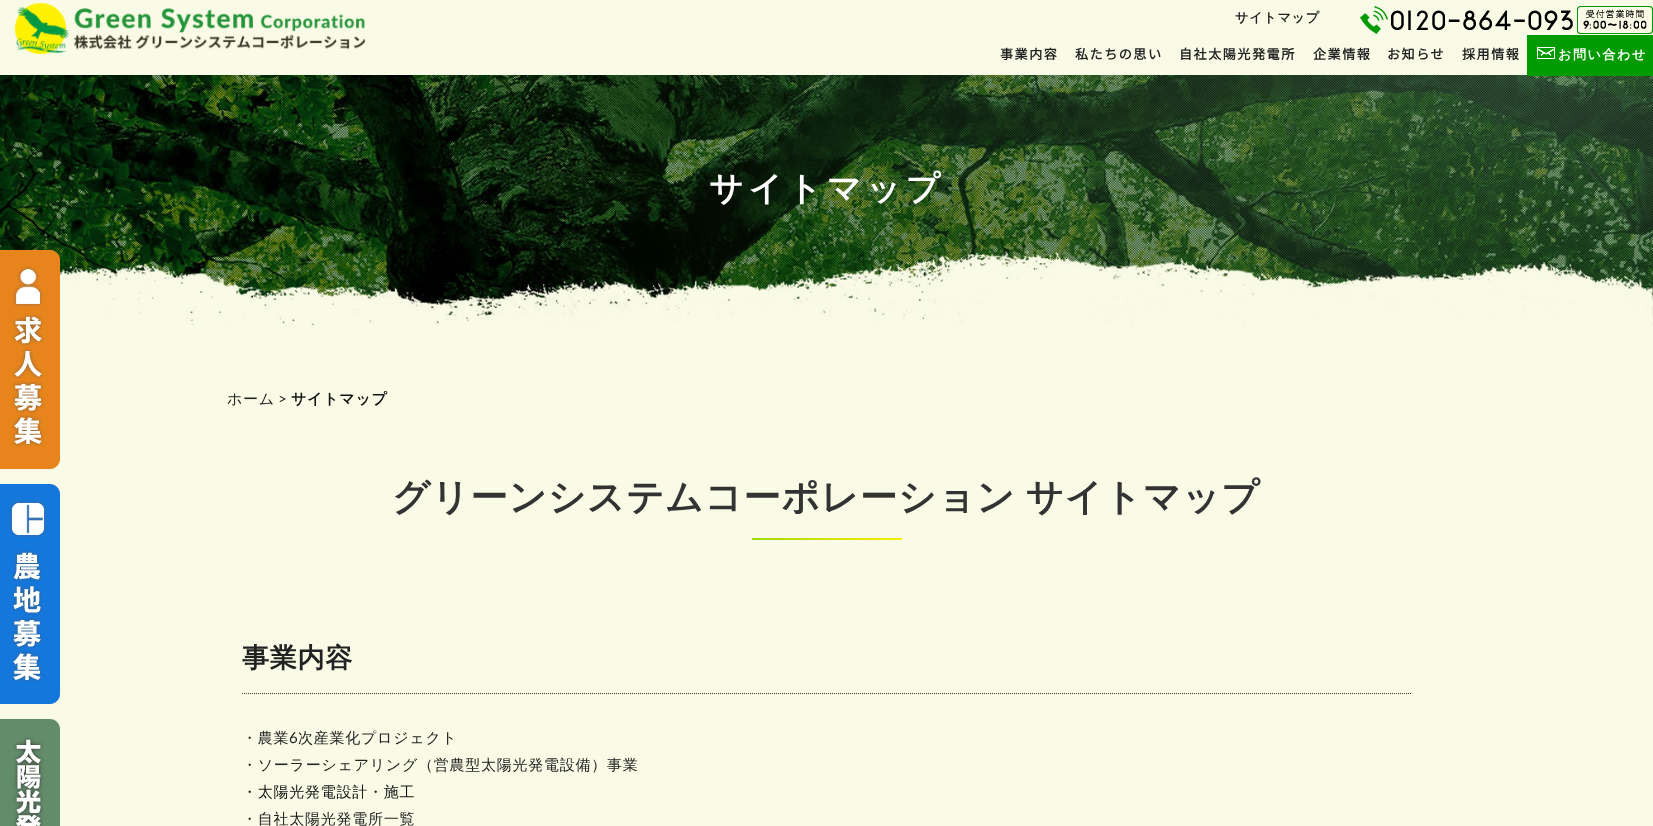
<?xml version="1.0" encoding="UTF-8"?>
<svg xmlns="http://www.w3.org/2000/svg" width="1653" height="826">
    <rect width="100%" height="100%" fill="#FAFBE6"/>
    <image x="15" y="2" width="350" height="53" href="img_01.png"/>
    <text x="1235" y="22" font-family="WenQuanYi Zen Hei" font-size="13.1" font-weight="700" letter-spacing="0.75" fill="#222222">サイトマップ</text>
    <image x="1360" y="6" width="293" height="28" href="img_02.png"/>
    <text x="1000" y="59" font-family="Noto Sans JP" font-size="13.1" font-weight="700" letter-spacing="1.5" fill="#222222">事業内容</text>
    <text x="1075" y="59" font-family="Noto Sans JP" font-size="13.1" font-weight="700" letter-spacing="1.5" fill="#222222">私たちの思い</text>
    <text x="1179" y="59" font-family="Noto Sans JP" font-size="13.1" font-weight="700" letter-spacing="1.5" fill="#222222">自社太陽光発電所</text>
    <text x="1313" y="59" font-family="Noto Sans JP" font-size="13.1" font-weight="700" letter-spacing="1.5" fill="#222222">企業情報</text>
    <text x="1387" y="59" font-family="Noto Sans JP" font-size="13.1" font-weight="700" letter-spacing="1.5" fill="#222222">お知らせ</text>
    <text x="1462" y="59" font-family="Noto Sans JP" font-size="13.1" font-weight="700" letter-spacing="1.5" fill="#222222">採用情報</text>
    <image x="0" y="75" width="1653" height="250" href="img_04.png"/>
    <rect x="1527" y="35" width="126" height="41" fill="#009B00"/>
    <image x="1537" y="47" width="18" height="12" href="img_03.png"/>
    <text x="1558" y="59" font-family="WenQuanYi Zen Hei" font-size="13.1" font-weight="700" letter-spacing="1.5" fill="#FFFFFF">お問い合わせ</text>
    <text x="709" y="200" font-family="WenQuanYi Zen Hei" font-size="33.75" font-weight="700" letter-spacing="4.75" fill="#FFFFFF">サイトマップ</text>
    <path d="M 0 250 H 50 C 55.5 250 60 254.5 60 260 V 459 C 60 464.5 55.5 469 50 469 H 0 Z" fill="#E7841C"/>
    <image x="12" y="266" width="33" height="181" href="img_05.png"/>
    <path d="M 0 484 H 50 C 55.5 484 60 488.5 60 494 V 694 C 60 699.5 55.5 704 50 704 H 0 Z" fill="#1477DC"/>
    <image x="8" y="499" width="40" height="184" href="img_06.png"/>
    <path d="M 0 719 H 50 C 55.5 719 60 723.5 60 729 V 826 C 60 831.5 55.5 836 50 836 H 0 Z" fill="#638C6B"/>
    <image x="13" y="736" width="31" height="90" href="img_07.png"/>
    <text x="227" y="404" font-family="WenQuanYi Zen Hei" font-size="15" font-weight="500" letter-spacing="0.75" fill="#222222">ホーム</text>
    <text x="278" y="404" font-family="Lato" font-size="15" letter-spacing="0.75" fill="#111111">&gt;</text>
    <text x="291" y="404" font-family="WenQuanYi Zen Hei" font-size="15" font-weight="700" letter-spacing="0.75" fill="#111111">サイトマップ</text>
    <text x="392" y="510" word-spacing="-2" font-family="WenQuanYi Zen Hei" font-size="37.5" font-weight="700" letter-spacing="0.75" fill="#333333">グリーンシステムコーポレーション サイトマップ</text>
    <image x="752" y="538" width="150" height="2" href="img_08.png"/>
    <path d="M 242 693.5 H 1412" fill="none" stroke="#4B3636" stroke-dasharray="1 1"/>
    <text x="242" y="667" font-family="WenQuanYi Zen Hei" font-size="27" font-weight="700" letter-spacing="0.75" fill="#222222">事業内容</text>
    <text x="242" y="743" font-family="WenQuanYi Zen Hei" font-size="15" font-weight="500" letter-spacing="0.75" fill="#222222">・農業</text>
    <text x="289" y="743" font-family="Lato" font-size="15" letter-spacing="0.75" fill="#222222">6</text>
    <text x="298" y="743" font-family="WenQuanYi Zen Hei" font-size="15" font-weight="500" letter-spacing="0.75" fill="#222222">次産業化プロジェクト</text>
    <text x="242" y="770" font-family="WenQuanYi Zen Hei" font-size="15" font-weight="500" letter-spacing="0.75" fill="#222222">・ソーラーシェアリング（営農型太陽光発電設備）事業</text>
    <text x="242" y="797" font-family="WenQuanYi Zen Hei" font-size="15" font-weight="500" letter-spacing="0.75" fill="#111111">・太陽光発電設計・施工</text>
    <text x="242" y="824" font-family="WenQuanYi Zen Hei" font-size="15" font-weight="500" letter-spacing="0.75" fill="#222222">・自社太陽光発電所一覧</text>
</svg>
